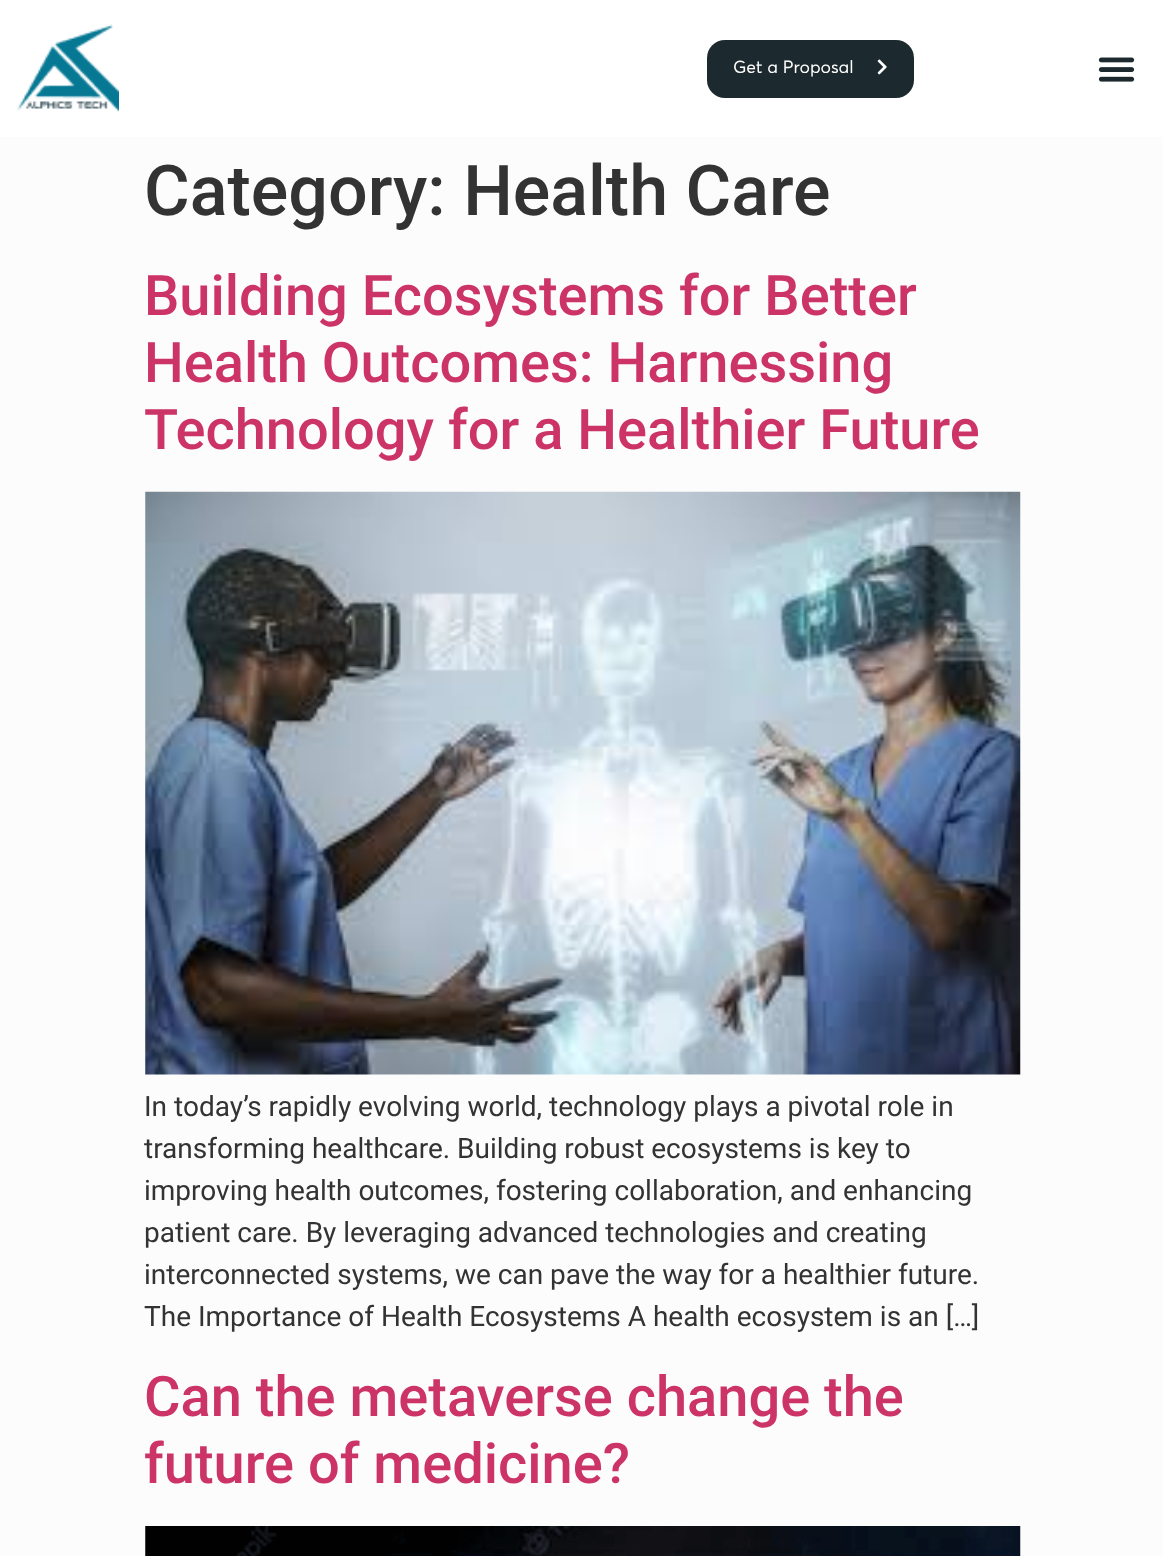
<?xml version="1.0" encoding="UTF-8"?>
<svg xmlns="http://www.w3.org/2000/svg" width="1163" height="1556">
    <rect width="100%" height="100%" fill="#FCFCFC"/>
    <rect x="0" y="0" width="1163" height="137" fill="#FFFFFF"/>
    <image x="17" y="24" width="102" height="89" href="img_01.png"/>
    <rect x="707" y="40" width="207" height="58" rx="18" fill="#1C292E"/>
    <text x="733" y="73" font-family="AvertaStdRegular" font-size="17.5" fill="#FFFFFF">Get a Proposal</text>
    <image x="877" y="59" width="10" height="16" href="img_02.png"/>
    <image x="1098" y="57" width="37" height="25" href="img_03.png"/>
    <text x="144" y="215" font-family="Roboto" font-size="70" font-weight="500" fill="#333333">Category: Health Care</text>
    <text font-family="Roboto" font-size="56" font-weight="500" fill="#CC3366">
        <tspan x="144" y="315">Building Ecosystems for Better</tspan>
        <tspan x="144" y="382">Health Outcomes: Harnessing</tspan>
        <tspan x="144" y="449">Technology for a Healthier Future</tspan>
    </text>
    <image x="145" y="491" width="876" height="584" href="img_04.png"/>
    <text font-family="Roboto" font-size="28" fill="#333333">
        <tspan x="144" y="1116">In today’s rapidly evolving world, technology plays a pivotal role in</tspan>
        <tspan x="144" y="1158">transforming healthcare. Building robust ecosystems is key to</tspan>
        <tspan x="144" y="1200">improving health outcomes, fostering collaboration, and enhancing</tspan>
        <tspan x="144" y="1242">patient care. By leveraging advanced technologies and creating</tspan>
        <tspan x="144" y="1284">interconnected systems, we can pave the way for a healthier future.</tspan>
        <tspan x="144" y="1326">The Importance of Health Ecosystems A health ecosystem is an […]</tspan>
    </text>
    <text font-family="Roboto" font-size="56" font-weight="500" fill="#CC3366">
        <tspan x="144" y="1416">Can the metaverse change the</tspan>
        <tspan x="144" y="1483">future of medicine?</tspan>
    </text>
    <image x="145" y="1526" width="876" height="30" href="img_05.png"/>
</svg>
